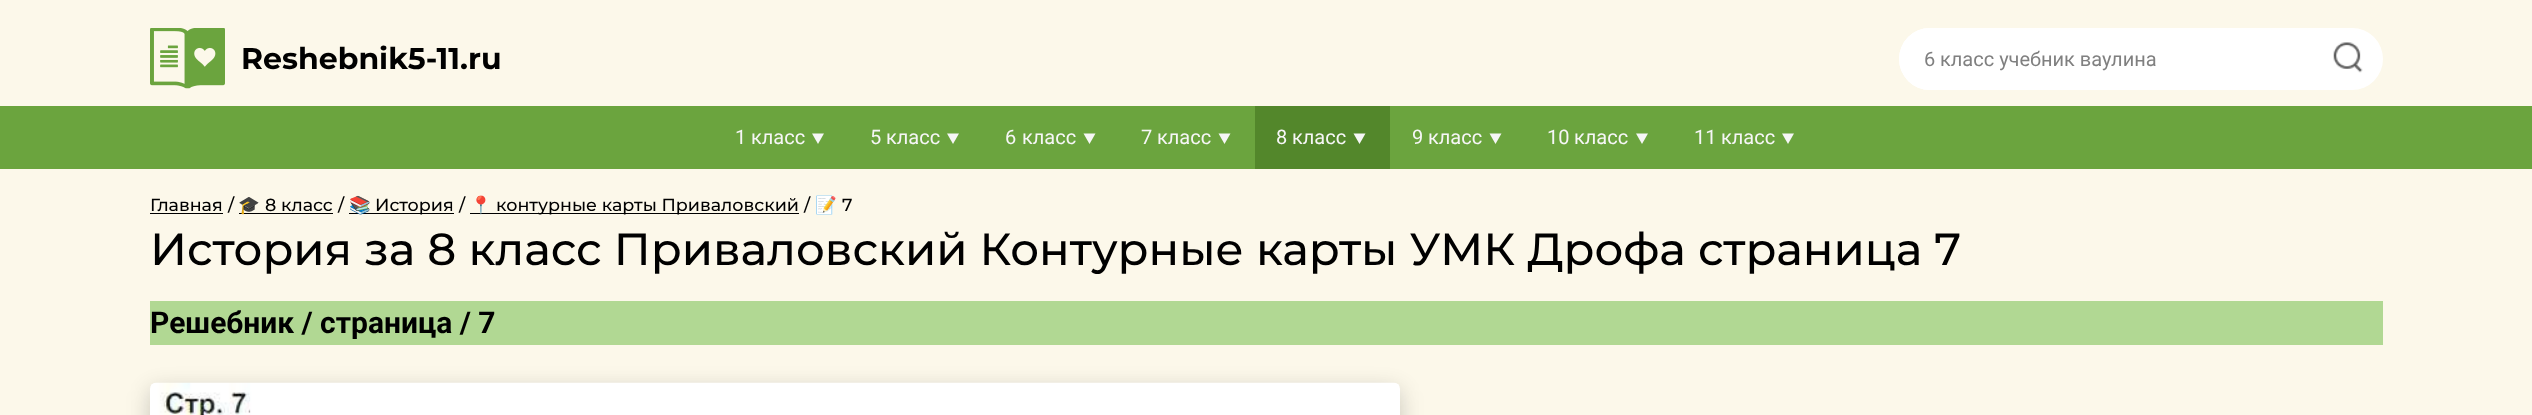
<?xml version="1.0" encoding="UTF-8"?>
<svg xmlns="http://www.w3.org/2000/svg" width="2532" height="415">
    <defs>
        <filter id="blur1" x="-50%" y="-200%" width="200%" height="500%"><feGaussianBlur stdDeviation="12.5"/></filter>
        <filter id="blur2" x="-50%" y="-200%" width="200%" height="500%"><feGaussianBlur stdDeviation="10"/></filter>
    </defs>
    <rect width="100%" height="100%" fill="#FCF8EA"/>
    <image x="150" y="28" width="75" height="61" href="img_01.png"/>
    <text x="241" y="69" font-family="Montserrat" font-size="30" font-weight="700" fill="#000000">Reshebnik5-11.ru</text>
    <rect x="1899" y="28" width="484" height="62" rx="31" fill="#FFFFFF"/>
    <rect x="1899" y="28" width="422" height="62" rx="31" fill="#FFFFFF"/>
    <text x="1924" y="66" font-family="Roboto" font-size="20" fill="#808080">6</text>
    <text x="1940" y="66" font-family="'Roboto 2'" font-size="20" fill="#808080">класс учебник ваулина</text>
    <image x="2333" y="42" width="30" height="31" href="img_02.png"/>
    <rect x="0" y="106" width="2532" height="63" fill="#6BA43E"/>
    <text x="735" y="144" font-family="Roboto" font-size="20" fill="#F6F6F6">1</text>
    <text x="751" y="144" font-family="'Roboto 2'" font-size="20" fill="#F6F6F6">класс</text>
    <path d="M 818 144 L 824 133.5 H 812 Z" fill="#F6F6F6"/>
    <text x="870" y="144" font-family="Roboto" font-size="20" fill="#F6F6F6">5</text>
    <text x="886" y="144" font-family="'Roboto 2'" font-size="20" fill="#F6F6F6">класс</text>
    <path d="M 953 144 L 959 133.5 H 947 Z" fill="#F6F6F6"/>
    <text x="1005" y="144" font-family="Roboto" font-size="20" fill="#F6F6F6">6</text>
    <text x="1022" y="144" font-family="'Roboto 2'" font-size="20" fill="#F6F6F6">класс</text>
    <path d="M 1089.5 144 L 1095.5 133.5 H 1083.5 Z" fill="#F6F6F6"/>
    <text x="1141" y="144" font-family="Roboto" font-size="20" fill="#F6F6F6">7</text>
    <text x="1157" y="144" font-family="'Roboto 2'" font-size="20" fill="#F6F6F6">класс</text>
    <path d="M 1224.5 144 L 1230.5 133.5 H 1218.5 Z" fill="#F6F6F6"/>
    <rect x="1255" y="106" width="135" height="63" fill="#53872B"/>
    <text x="1276" y="144" font-family="Roboto" font-size="20" fill="#F6F6F6">8</text>
    <text x="1292" y="144" font-family="'Roboto 2'" font-size="20" fill="#F6F6F6">класс</text>
    <path d="M 1359.5 144 L 1365.5 133.5 H 1353.5 Z" fill="#F6F6F6"/>
    <text x="1412" y="144" font-family="Roboto" font-size="20" fill="#F6F6F6">9</text>
    <text x="1428" y="144" font-family="'Roboto 2'" font-size="20" fill="#F6F6F6">класс</text>
    <path d="M 1495.5 144 L 1501.5 133.5 H 1489.5 Z" fill="#F6F6F6"/>
    <text x="1547" y="144" font-family="Roboto" font-size="20" fill="#F6F6F6">10</text>
    <text x="1574" y="144" font-family="'Roboto 2'" font-size="20" fill="#F6F6F6">класс</text>
    <path d="M 1642 144 L 1648 133.5 H 1636 Z" fill="#F6F6F6"/>
    <text x="1694" y="144" font-family="Roboto" font-size="20" fill="#F6F6F6">11</text>
    <text x="1721" y="144" font-family="'Roboto 2'" font-size="20" fill="#F6F6F6">класс</text>
    <path d="M 1788 144 L 1794 133.5 H 1782 Z" fill="#F6F6F6"/>
    <text x="150" y="211" font-family="Montserrat" font-size="17.5" font-weight="100" fill="#000000">Главная</text>
    <rect x="150" y="213" width="73" height="1" fill="#000000"/>
    <text x="228" y="211" font-family="Montserrat" font-size="17.5" font-weight="100" fill="#000000">/</text>
    <rect x="239" y="213" width="94" height="1" fill="#000000"/>
    <text x="238" y="211" font-family="Noto Color Emoji" font-size="17.5" fill="#000000">🎓</text>
    <text x="265" y="211" font-family="Montserrat" font-size="17.5" font-weight="100" fill="#000000">8 класс</text>
    <text x="338" y="211" font-family="Montserrat" font-size="17.5" font-weight="100" fill="#000000">/</text>
    <rect x="349" y="213" width="105" height="1" fill="#000000"/>
    <text x="349" y="211" font-family="'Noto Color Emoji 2'" font-size="17.5" fill="#000000">📚</text>
    <text x="375" y="211" font-family="Montserrat" font-size="17.5" font-weight="100" fill="#000000">История</text>
    <text x="459" y="211" font-family="Montserrat" font-size="17.5" font-weight="100" fill="#000000">/</text>
    <rect x="470" y="213" width="329" height="1" fill="#000000"/>
    <text x="470" y="211" font-family="'Noto Color Emoji 2'" font-size="17.5" fill="#000000">📍</text>
    <text x="496" y="211" font-family="Montserrat" font-size="17.5" font-weight="100" fill="#000000">контурные карты Приваловский</text>
    <text x="804" y="211" font-family="Montserrat" font-size="17.5" font-weight="100" fill="#000000">/</text>
    <text x="815" y="211" font-family="'Noto Color Emoji 2'" font-size="17.5" fill="#000000">📝</text>
    <text x="842" y="211" font-family="Montserrat" font-size="17.5" font-weight="100" fill="#000000">7</text>
    <text x="150" y="265" font-family="Montserrat" font-size="45" font-weight="100" fill="#000000">История за 8 класс Приваловский Контурные карты УМК Дрофа страница 7</text>
    <rect x="150" y="301" width="2233" height="44" fill="#B1D893"/>
    <text x="150" y="333" font-family="Roboto" font-size="30" font-weight="700" fill="#000000">Решебник / страница / 7</text>
    <rect x="150" y="390" width="1250" height="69" rx="6" fill="#000000" fill-opacity="0.11" filter="url(#blur1)"/>
    <rect x="150" y="389" width="1250" height="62" rx="6" fill="#000000" fill-opacity="0.1" filter="url(#blur2)"/>
    <image x="150" y="382" width="1250" height="33" href="img_03.png"/>
</svg>
